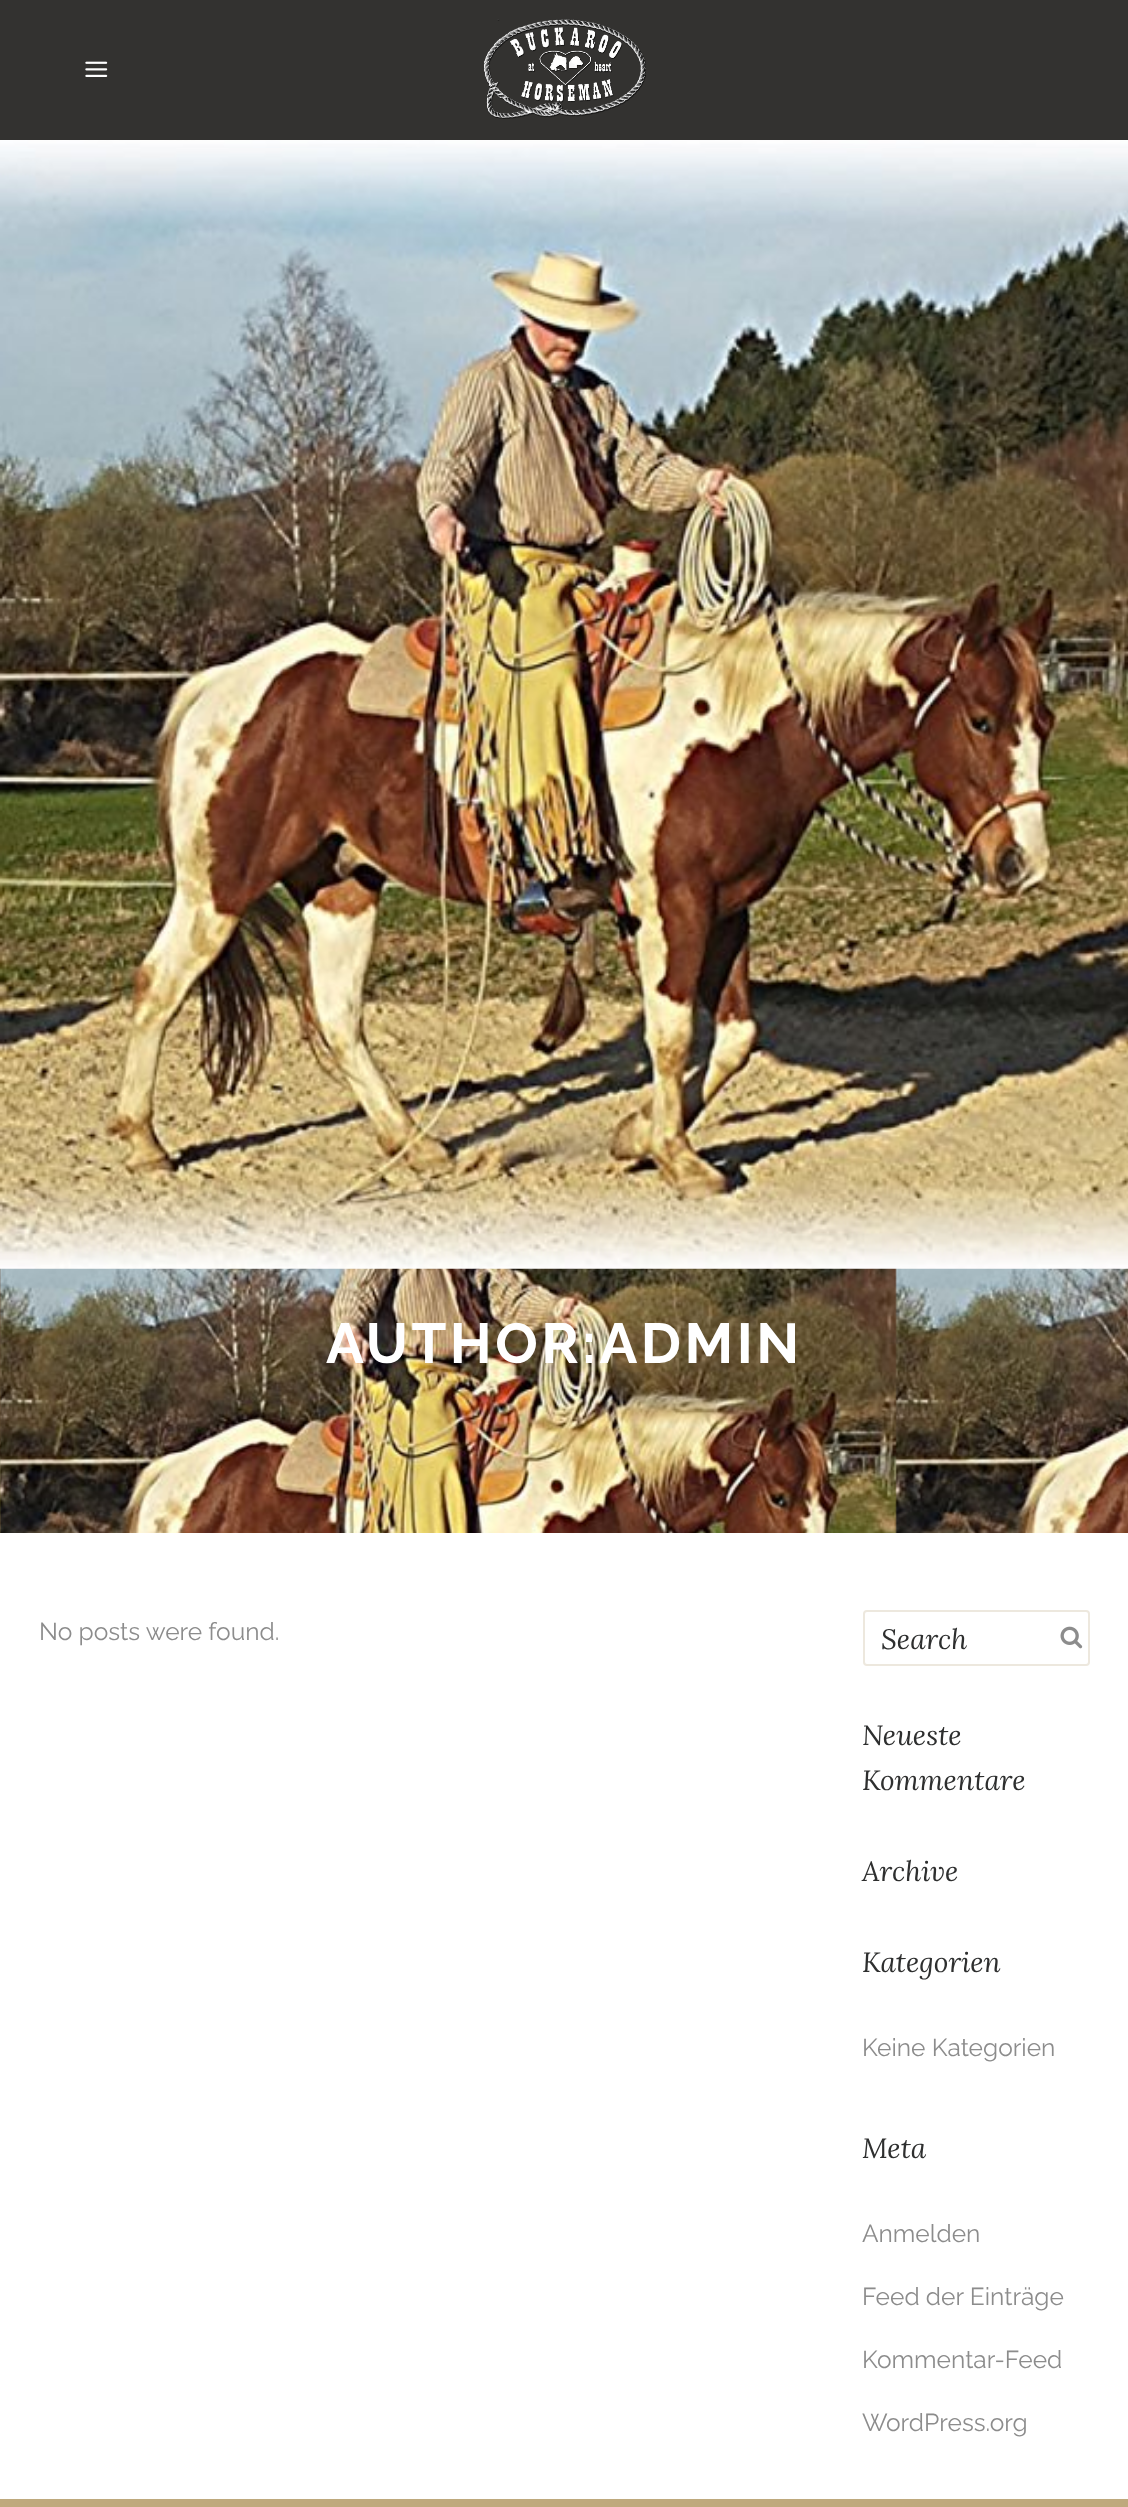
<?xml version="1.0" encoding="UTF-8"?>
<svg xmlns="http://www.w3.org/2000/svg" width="1128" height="2507">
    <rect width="100%" height="100%" fill="#FFFFFF"/>
    <rect x="0" y="0" width="1128" height="140" fill="#333230"/>
    <image x="85" y="61" width="23" height="16" href="img_01.png"/>
    <image x="484" y="19" width="162" height="100" href="img_02.png"/>
    <image x="0" y="140" width="1128" height="1393" href="img_03.png"/>
    <image x="0" y="148" width="1128" height="1121" href="img_04.png"/>
    <text x="326" y="1363" font-family="Raleway" font-size="56.25" font-weight="700" letter-spacing="3.5" fill="#FFFFFF">AUTHOR:ADMIN</text>
    <text x="39" y="1640" font-family="Raleway" font-size="24.5" fill="#8C8C8C">No posts were found.</text>
    <rect x="864" y="1611" width="225" height="54" rx="3" fill="none" stroke="#EDE8DE" stroke-width="2"/>
    <text x="881" y="1649" font-family="Lora" font-size="28" font-style="italic" fill="#2E2F2F">Search</text>
    <image x="1060" y="1626" width="23" height="23" href="img_05.png"/>
    <text font-family="Lora" font-size="28" font-style="italic" fill="#2E2F2F">
        <tspan x="862" y="1745">Neueste</tspan>
        <tspan x="862" y="1790">Kommentare</tspan>
    </text>
    <text x="862" y="1881" font-family="Lora" font-size="28" font-style="italic" fill="#2E2F2F">Archive</text>
    <text x="862" y="1972" font-family="Lora" font-size="28" font-style="italic" fill="#2E2F2F">Kategorien</text>
    <text x="862" y="2056" font-family="Raleway" font-size="24.5" fill="#8C8C8C">Keine Kategorien</text>
    <text x="862" y="2158" font-family="Lora" font-size="28" font-style="italic" fill="#2E2F2F">Meta</text>
    <text x="862" y="2242" font-family="Raleway" font-size="24.5" fill="#8C8C8C">Anmelden</text>
    <text x="862" y="2305" font-family="Raleway" font-size="24.5" fill="#8C8C8C">Feed der Einträge</text>
    <text x="862" y="2368" font-family="Raleway" font-size="24.5" fill="#8C8C8C">Kommentar-Feed</text>
    <text x="862" y="2431" font-family="Raleway" font-size="24.5" fill="#8C8C8C">WordPress.org</text>
    <rect x="0" y="2499" width="1128" height="8" fill="#BFA97D"/>
</svg>
